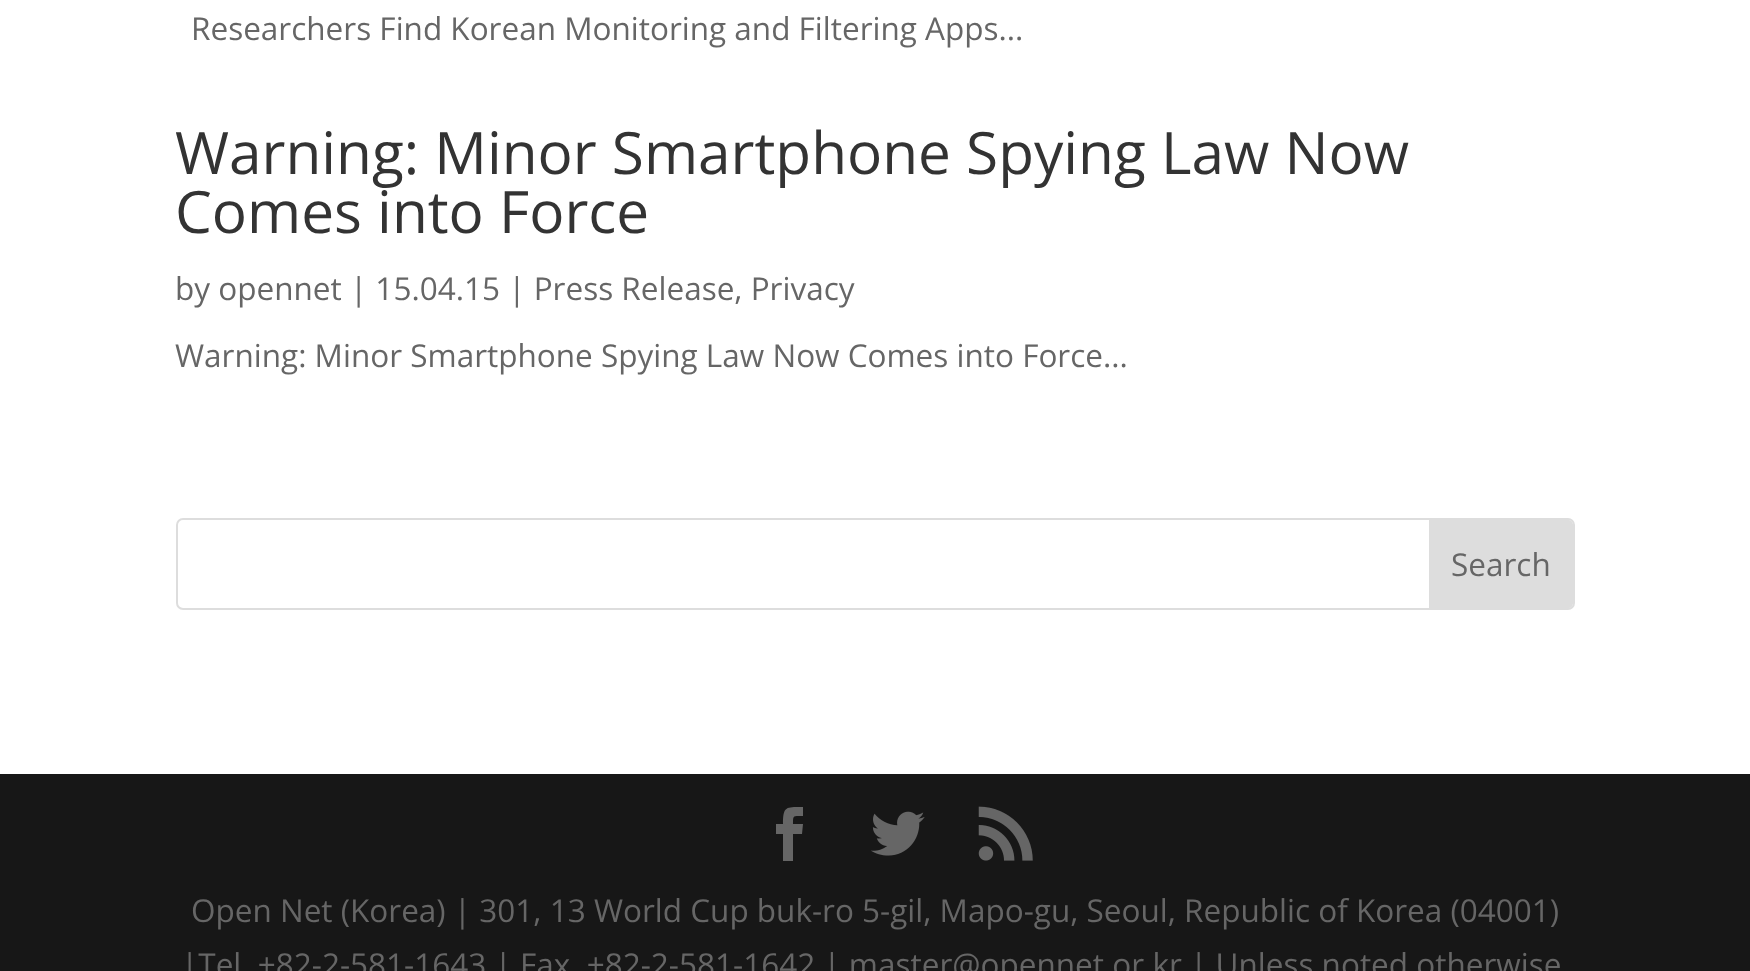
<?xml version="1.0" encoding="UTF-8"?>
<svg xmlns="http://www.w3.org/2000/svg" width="1750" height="971">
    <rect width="100%" height="100%" fill="#FFFFFF"/>
    <text x="191" y="40" font-family="Open Sans" font-size="31.5" fill="#666666">Researchers Find Korean Monitoring and Filtering Apps...</text>
    <text font-family="Open Sans" font-size="58.5" fill="#333333">
        <tspan x="175" y="174">Warning: Minor Smartphone Spying Law Now</tspan>
        <tspan x="175" y="233">Comes into Force</tspan>
    </text>
    <text x="175" y="300" font-family="Open Sans" font-size="31.5" fill="#666666">by opennet | 15.04.15 | Press Release, Privacy</text>
    <text x="175" y="367" font-family="Open Sans" font-size="31.5" fill="#666666">Warning: Minor Smartphone Spying Law Now Comes into Force...</text>
    <rect x="177" y="519" width="1397" height="90" rx="6" fill="none" stroke="#DDDDDD" stroke-width="2"/>
    <path d="M 1429 520 H 1568 C 1571 520 1573 522 1573 525 V 603 C 1573 606 1571 608 1568 608 H 1429 Z" fill="#DDDDDD"/>
    <text x="1451" y="576" font-family="Open Sans" font-size="31.5" fill="#666666">Search</text>
    <rect x="0" y="774" width="1750" height="197" fill="#171717"/>
    <path d="M 783 861 H 793 V 834 H 802 L 803 824 H 793 C 793 815 793 816 803 816 V 807 C 786 807 783 806 783 824 H 776 V 834 H 783 Z" fill="#666666"/>
    <image x="871" y="811" width="54" height="45" href="img_01.png"/>
    <image x="978" y="806" width="55" height="55" href="img_02.png"/>
    <text x="191" y="922" font-family="Open Sans" font-size="31.5" fill="#666666">Open Net (Korea) | 301, 13 World Cup buk-ro 5-gil, Mapo-gu, Seoul, Republic of Korea (04001)</text>
    <text x="181" y="976" font-family="Open Sans" font-size="31.5" fill="#666666">|Tel. +82-2-581-1643 | Fax. +82-2-581-1642 | master@opennet.or.kr | Unless noted otherwise</text>
</svg>
